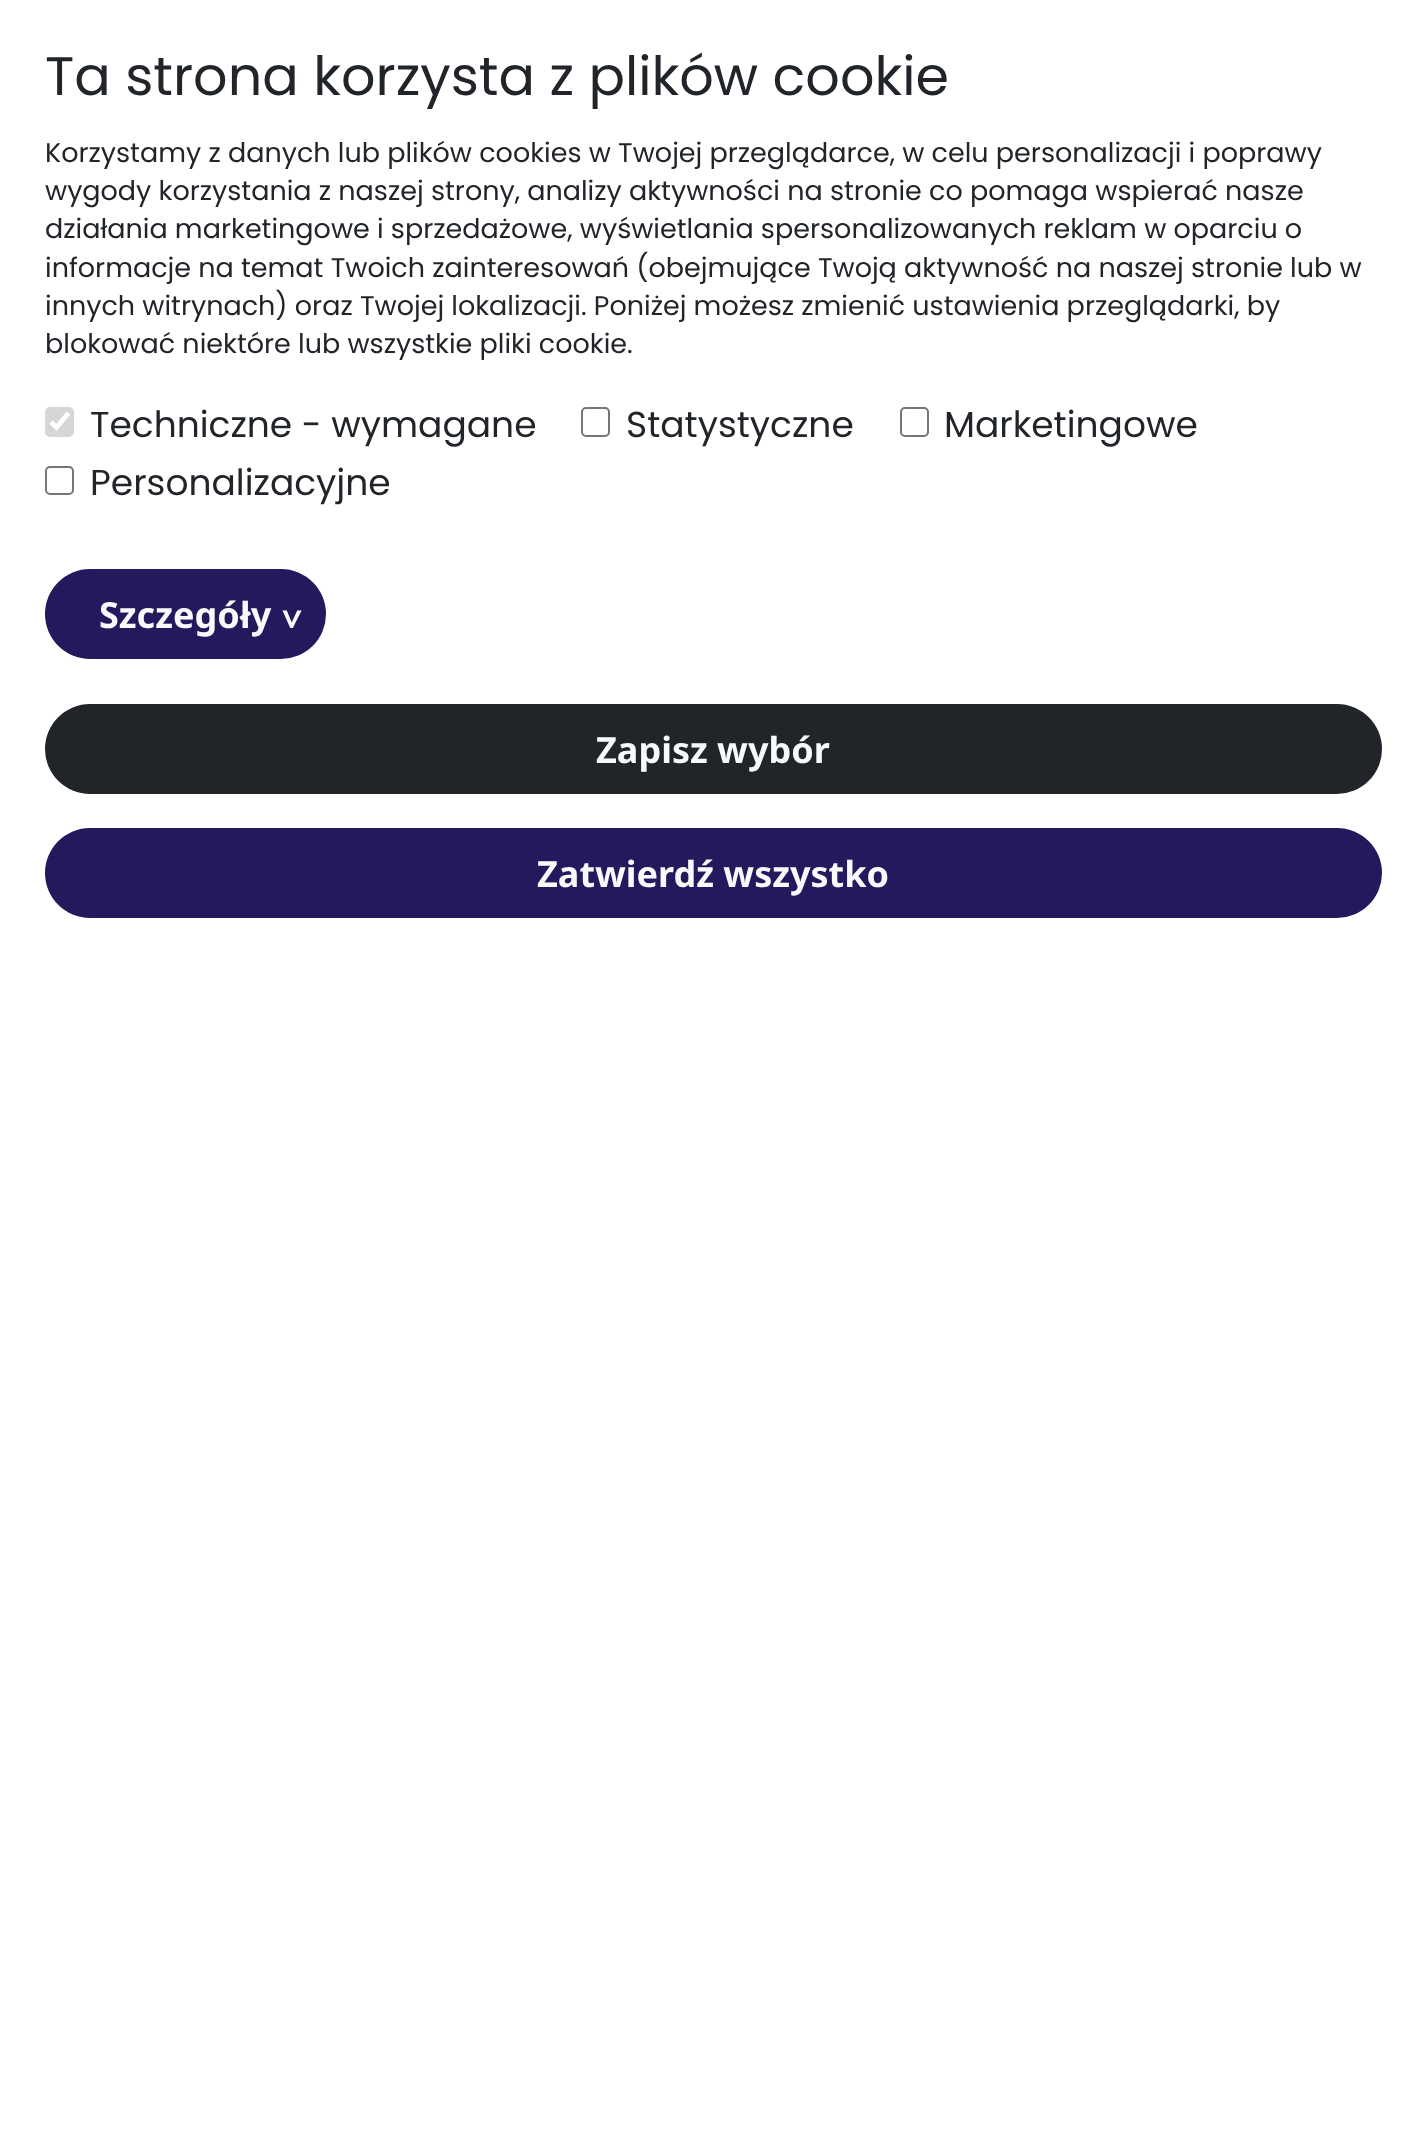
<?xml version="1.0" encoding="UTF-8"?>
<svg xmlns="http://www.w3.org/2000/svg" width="1425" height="2154">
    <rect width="100%" height="100%" fill="#FFFFFF"/>
    <text x="45" y="95" font-family="Poppins" font-size="54" fill="#212529">Ta strona korzysta z plików cookie</text>
    <text font-family="Poppins" font-size="27" fill="#212529">
        <tspan x="45" y="162">Korzystamy z danych lub plików cookies w Twojej przeglądarce, w celu personalizacji i poprawy</tspan>
        <tspan x="45" y="200">wygody korzystania z naszej strony, analizy aktywności na stronie co pomaga wspierać nasze</tspan>
        <tspan x="45" y="238">działania marketingowe i sprzedażowe, wyświetlania spersonalizowanych reklam w oparciu o</tspan>
        <tspan x="45" y="277">informacje na temat Twoich zainteresowań (obejmujące Twoją aktywność na naszej stronie lub w</tspan>
        <tspan x="45" y="315">innych witrynach) oraz Twojej lokalizacji. Poniżej możesz zmienić ustawienia przeglądarki, by</tspan>
        <tspan x="45" y="353">blokować niektóre lub wszystkie pliki cookie.</tspan>
    </text>
    <rect x="45" y="407" width="29" height="30" rx="5" fill="#D6D6D6"/>
    <path d="M 51 422 L 56.5 427.5 L 68.5 413" fill="none" stroke="#FFFFFF" stroke-width="4.7"/>
    <text x="90" y="437" font-family="Poppins" font-size="36" fill="#212529">Techniczne - wymagane</text>
    <rect x="582" y="408" width="27" height="28" rx="4" fill="none" stroke="#767676" stroke-width="2"/>
    <text x="626" y="437" font-family="Poppins" font-size="36" fill="#212529">Statystyczne</text>
    <rect x="901" y="408" width="27" height="28" rx="4" fill="none" stroke="#767676" stroke-width="2"/>
    <text x="944" y="437" font-family="Poppins" font-size="36" fill="#212529">Marketingowe</text>
    <rect x="46" y="467" width="27" height="27" rx="4" fill="none" stroke="#767676" stroke-width="2"/>
    <text x="90" y="495" font-family="Poppins" font-size="36" fill="#212529">Personalizacyjne</text>
    <rect x="45" y="569" width="281" height="90" rx="45" fill="#24195D"/>
    <text x="99" y="628" font-family="Noto Sans" font-size="36" font-weight="700" fill="#F8F9FA">Szczegóły</text>
    <text x="279" y="609" transform="rotate(90 279 609)" font-family="Noto Sans" font-size="36" font-weight="700" fill="#F8F9FA">&gt;</text>
    <rect x="45" y="704" width="1337" height="90" rx="45" fill="#212529"/>
    <text x="596" y="763" font-family="Noto Sans" font-size="36" font-weight="700" fill="#F8F9FA">Zapisz wybór</text>
    <rect x="45" y="828" width="1337" height="90" rx="45" fill="#24195D"/>
    <text x="537" y="887" font-family="Noto Sans" font-size="36" font-weight="700" fill="#F8F9FA">Zatwierdź wszystko</text>
</svg>
